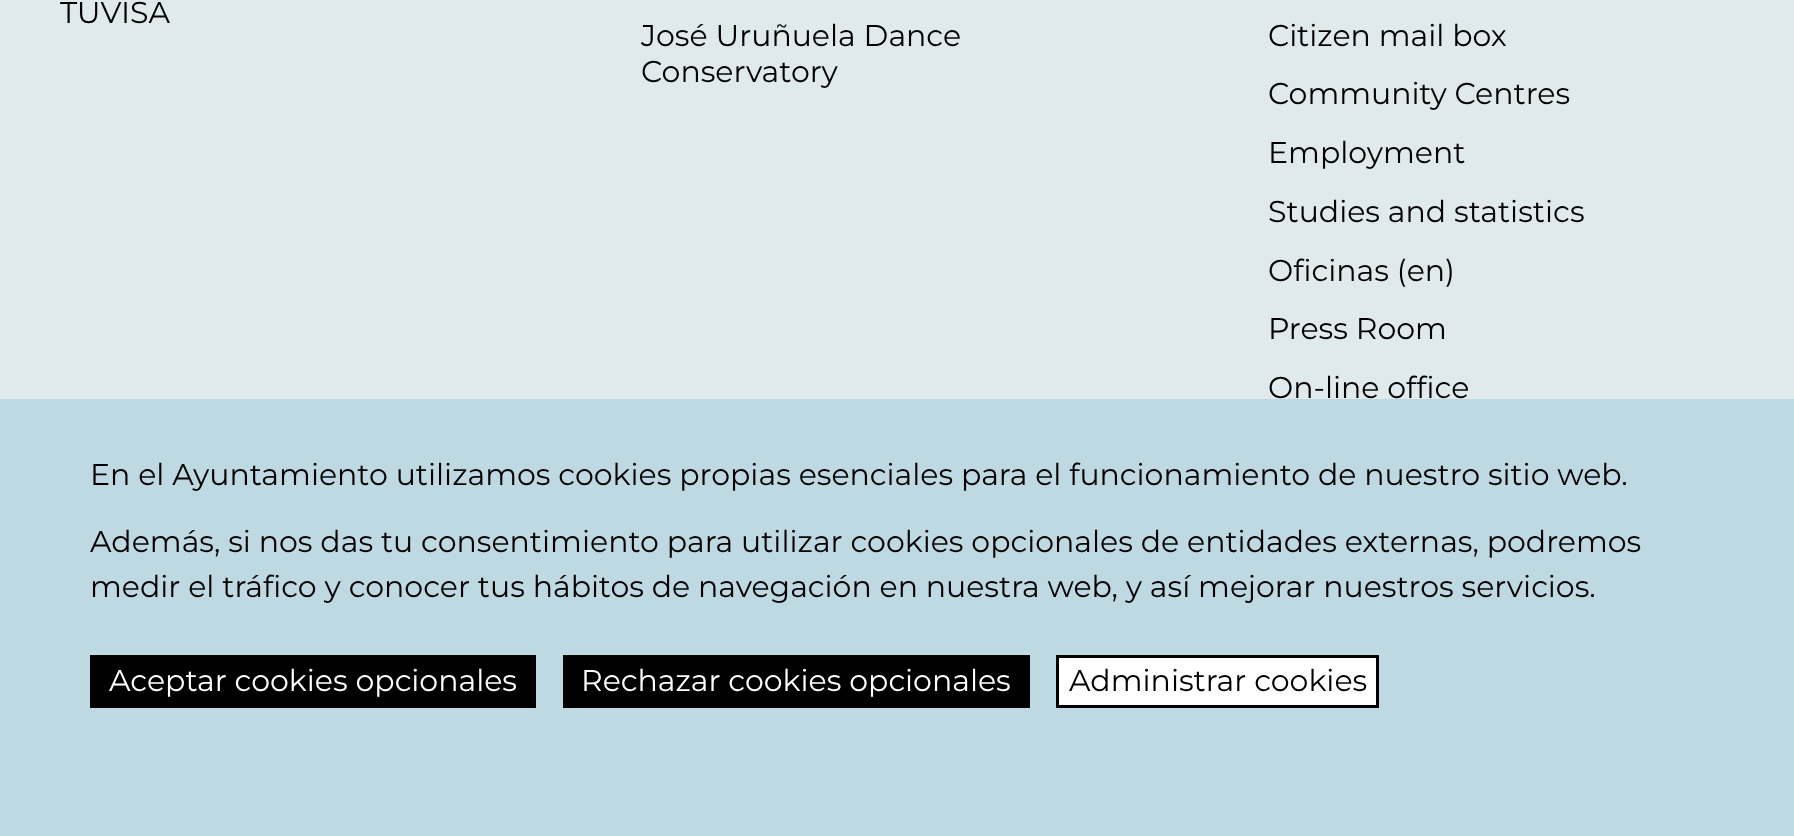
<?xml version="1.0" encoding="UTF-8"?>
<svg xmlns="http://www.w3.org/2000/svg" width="1794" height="836">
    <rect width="100%" height="100%" fill="#E0EAEC"/>
    <text x="60" y="23" font-family="Montserrat" font-size="30" fill="#000000">TUVISA</text>
    <text font-family="Montserrat" font-size="30" fill="#000000">
        <tspan x="641" y="46">José Uruñuela Dance</tspan>
        <tspan x="641" y="82">Conservatory</tspan>
    </text>
    <text font-family="Montserrat" font-size="30" fill="#000000">
        <tspan x="1268" y="46">Citizen mail box</tspan>
        <tspan x="1268" y="104">Community Centres</tspan>
        <tspan x="1268" y="163">Employment</tspan>
        <tspan x="1268" y="222">Studies and statistics</tspan>
        <tspan x="1268" y="281">Oficinas (en)</tspan>
        <tspan x="1268" y="339">Press Room</tspan>
        <tspan x="1268" y="398">On-line office</tspan>
    </text>
    <rect x="0" y="399" width="1794" height="437" fill="#BFD9E2"/>
    <text x="90" y="485" font-family="Montserrat" font-size="30" fill="#000000">En el Ayuntamiento utilizamos cookies propias esenciales para el funcionamiento de nuestro sitio web.</text>
    <text font-family="Montserrat" font-size="30" fill="#000000">
        <tspan x="90" y="552">Además, si nos das tu consentimiento para utilizar cookies opcionales de entidades externas, podremos</tspan>
        <tspan x="90" y="597">medir el tráfico y conocer tus hábitos de navegación en nuestra web, y así mejorar nuestros servicios.</tspan>
    </text>
    <rect x="90" y="655" width="446" height="53" fill="#000000"/>
    <text x="109" y="691" font-family="Montserrat" font-size="30" fill="#FFFFFF">Aceptar cookies opcionales</text>
    <rect x="563" y="655" width="467" height="53" fill="#000000"/>
    <text x="581" y="691" font-family="Montserrat" font-size="30" fill="#FFFFFF">Rechazar cookies opcionales</text>
    <rect x="1057.5" y="656.5" width="320" height="50" fill="#FFFFFF" stroke="#000000" stroke-width="3"/>
    <text x="1069" y="691" font-family="Montserrat" font-size="30" fill="#000000">Administrar cookies</text>
</svg>
